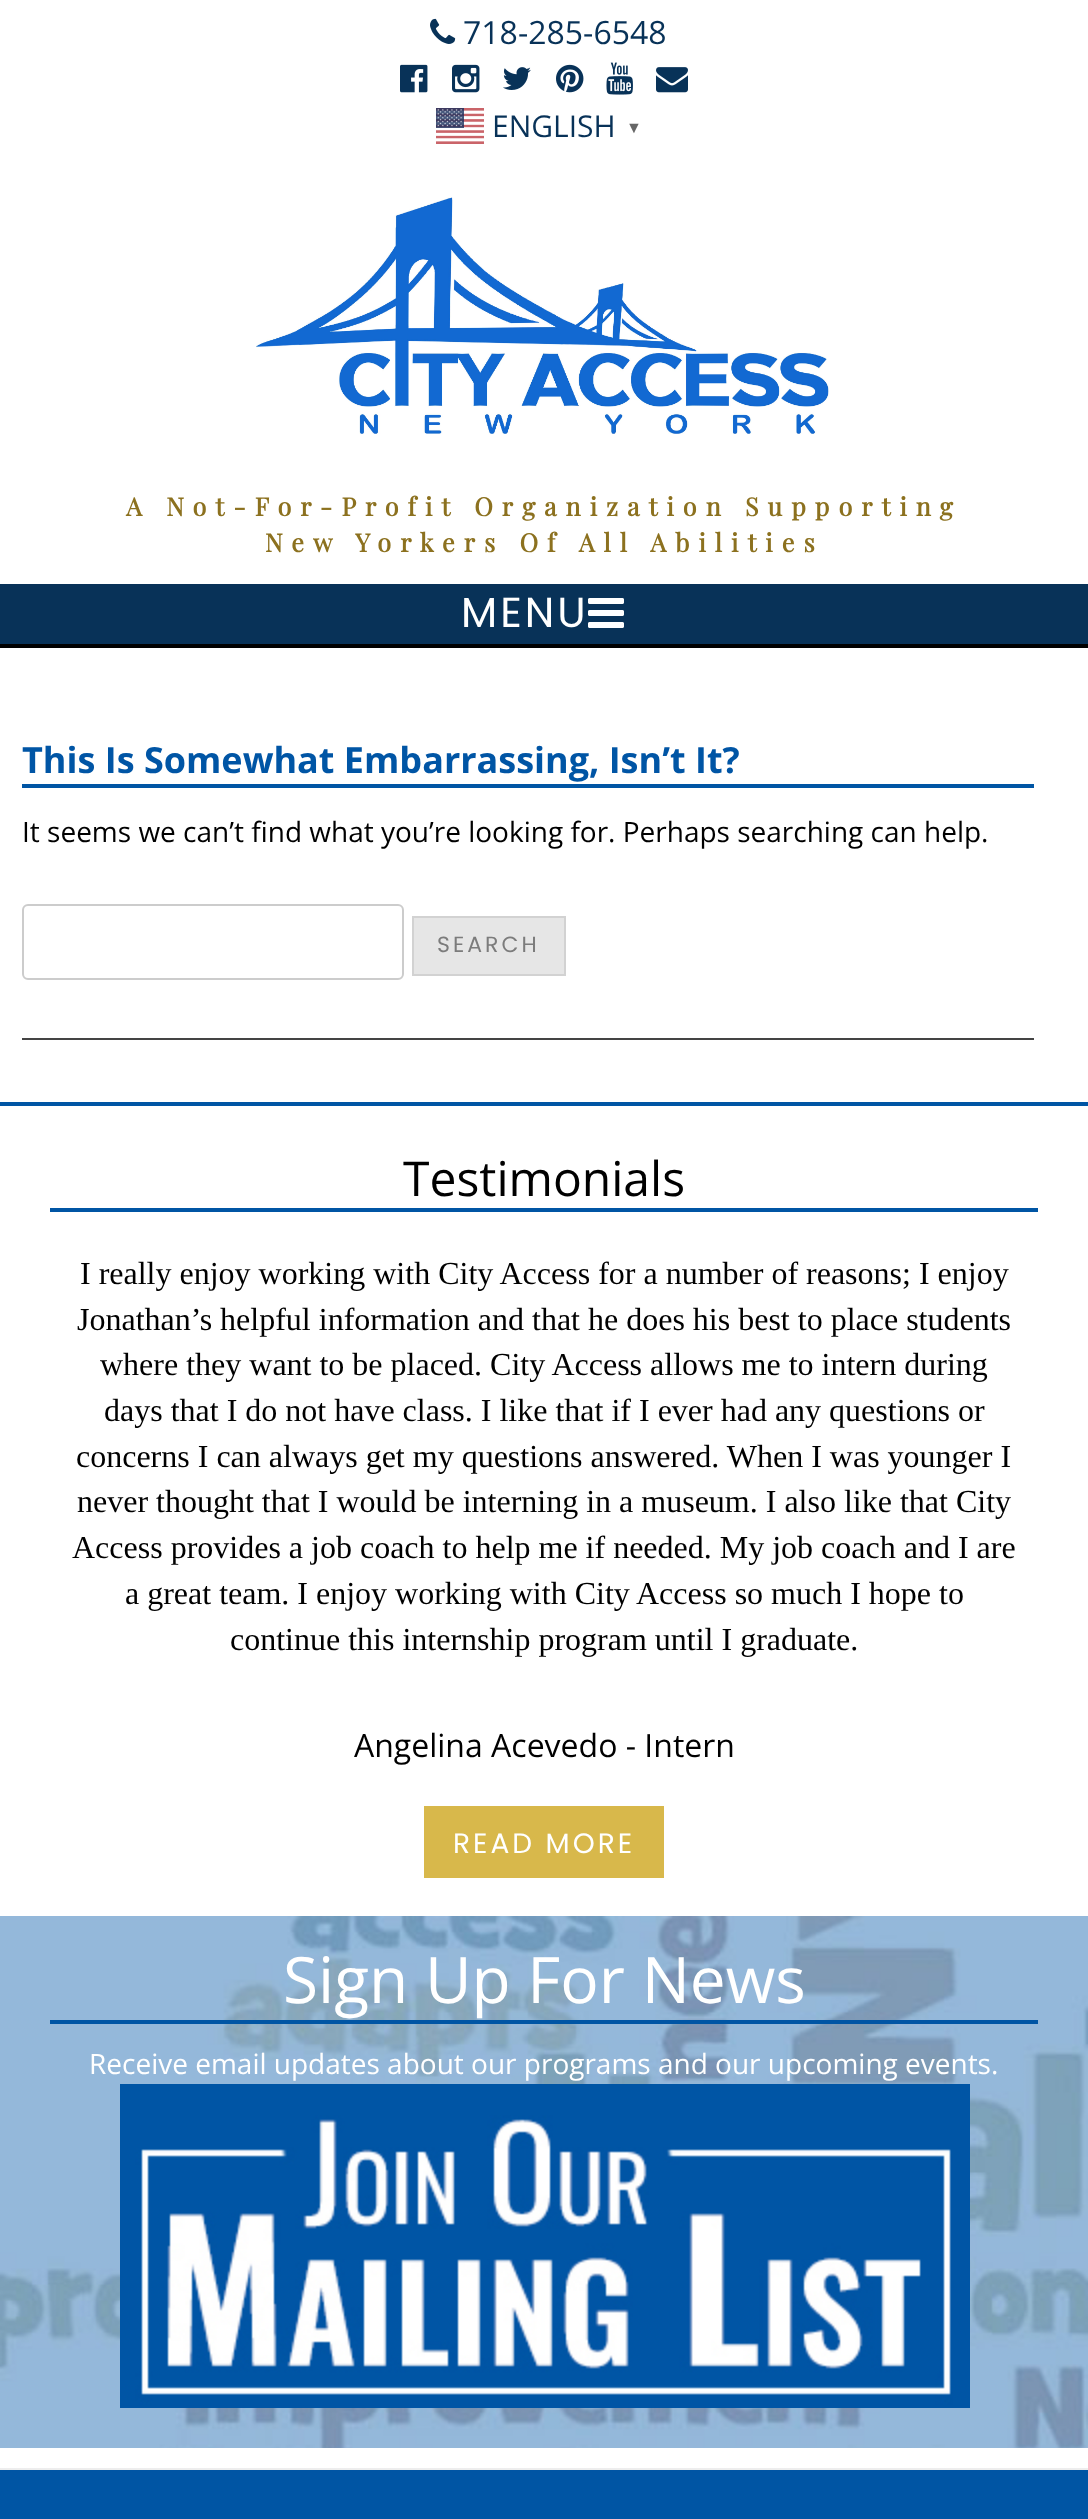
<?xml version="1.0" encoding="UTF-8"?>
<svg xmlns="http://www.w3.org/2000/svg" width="1088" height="2519">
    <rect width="100%" height="100%" fill="#FFFFFF"/>
    <image x="430" y="18" width="26" height="26" href="img_01.png"/>
    <text x="463" y="44" font-family="Open Sans" font-size="32" fill="#083258">718-285-6548</text>
    <image x="400" y="64" width="28" height="29" href="img_02.png"/>
    <image x="452" y="64" width="28" height="29" href="img_03.png"/>
    <image x="503" y="67" width="28" height="23" href="img_04.png"/>
    <image x="556" y="64" width="28" height="29" href="img_05.png"/>
    <image x="606" y="62" width="27" height="33" href="img_06.png"/>
    <image x="656" y="67" width="32" height="26" href="img_07.png"/>
    <image x="436" y="108" width="48" height="36" href="img_08.png"/>
    <text x="492" y="137" font-family="Open Sans" font-size="30" fill="#083258">ENGLISH</text>
    <text x="626" y="133" font-family="Liberation Sans" font-size="16" font-weight="700" fill="#666666">▼</text>
    <rect x="0" y="644" width="1088" height="4" fill="#000000"/>
    <image x="256" y="197" width="573" height="237" href="img_09.png"/>
    <text x="126" y="516" font-family="Playfair Display" font-size="25.2" font-weight="700" letter-spacing="9" fill="#8C711F">A Not-For-Profit Organization Supporting</text>
    <text x="265" y="552" font-family="Playfair Display" font-size="25.2" font-weight="700" letter-spacing="9" fill="#8C711F">New Yorkers Of All Abilities</text>
    <rect x="0" y="584" width="1088" height="60" fill="#083258"/>
    <text x="461" y="627" font-family="Poppins" font-size="42" letter-spacing="3" fill="#FFFFFF">MENU</text>
    <image x="588" y="598" width="36" height="30" href="img_10.png"/>
    <rect x="22" y="1038" width="1012" height="2" fill="#444444"/>
    <rect x="22" y="784" width="1012" height="4" fill="#0055A4"/>
    <text x="22" y="773" font-family="Open Sans" font-size="36" font-weight="700" fill="#0055A5">This Is Somewhat Embarrassing, Isn’t It?</text>
    <text x="22" y="842" font-family="Open Sans" font-size="28" fill="#000000">It seems we can’t find what you’re looking for. Perhaps searching can help.</text>
    <rect x="23" y="905" width="380" height="74" rx="5" fill="none" stroke="#CCCCCC" stroke-width="2"/>
    <rect x="413" y="917" width="152" height="58" fill="#E6E6E6" stroke="#D2D2D2" stroke-width="2"/>
    <text x="437" y="952" font-family="Poppins" font-size="22" letter-spacing="3" fill="#7C7C7C">SEARCH</text>
    <rect x="0" y="1102" width="1088" height="4" fill="#0055A4"/>
    <rect x="50" y="1208" width="988" height="4" fill="#0055A4"/>
    <text x="403" y="1196" font-family="Open Sans" font-size="48" fill="#000000">Testimonials</text>
    <text x="80" y="1284" font-family="Liberation Serif" font-size="32" fill="#000000">I really enjoy working with City Access for a number of reasons; I enjoy</text>
    <text x="77" y="1330" font-family="Liberation Serif" font-size="32" fill="#000000">Jonathan’s helpful information and that he does his best to place students</text>
    <text x="100" y="1375" font-family="Liberation Serif" font-size="32" fill="#000000">where they want to be placed. City Access allows me to intern during</text>
    <text x="104" y="1421" font-family="Liberation Serif" font-size="32" fill="#000000">days that I do not have class. I like that if I ever had any questions or</text>
    <text x="76" y="1467" font-family="Liberation Serif" font-size="32" fill="#000000">concerns I can always get my questions answered. When I was younger I</text>
    <text x="77" y="1512" font-family="Liberation Serif" font-size="32" fill="#000000">never thought that I would be interning in a museum. I also like that City</text>
    <text x="72" y="1558" font-family="Liberation Serif" font-size="32" fill="#000000">Access provides a job coach to help me if needed. My job coach and I are</text>
    <text x="125" y="1604" font-family="Liberation Serif" font-size="32" fill="#000000">a great team. I enjoy working with City Access so much I hope to</text>
    <text x="230" y="1650" font-family="Liberation Serif" font-size="32" fill="#000000">continue this internship program until I graduate.</text>
    <text x="354" y="1757" font-family="Open Sans" font-size="32" fill="#000000">Angelina Acevedo - Intern</text>
    <rect x="426" y="1808" width="236" height="68" fill="#D8B84B"/>
    <rect x="425" y="1807" width="238" height="70" fill="none" stroke="#D8B84B" stroke-width="2"/>
    <text x="453" y="1853" font-family="Poppins" font-size="28" letter-spacing="3" fill="#FFFFFF">READ MORE</text>
    <image x="0" y="1916" width="1088" height="532" href="img_11.png"/>
    <rect x="50" y="2020" width="988" height="4" fill="#0055A4"/>
    <text x="283" y="2003" font-family="Open Sans" font-size="64" fill="#FFFFFF">Sign Up For News</text>
    <text x="89" y="2074" font-family="Open Sans" font-size="28" fill="#FFFFFF">Receive email updates about our programs and our upcoming events.</text>
    <image x="120" y="2084" width="850" height="324" href="img_12.png"/>
    <rect x="0" y="2470" width="1088" height="49" fill="#0055A4"/>
    <rect x="0" y="2468" width="1088" height="2" fill="#EDEDED"/>
</svg>
